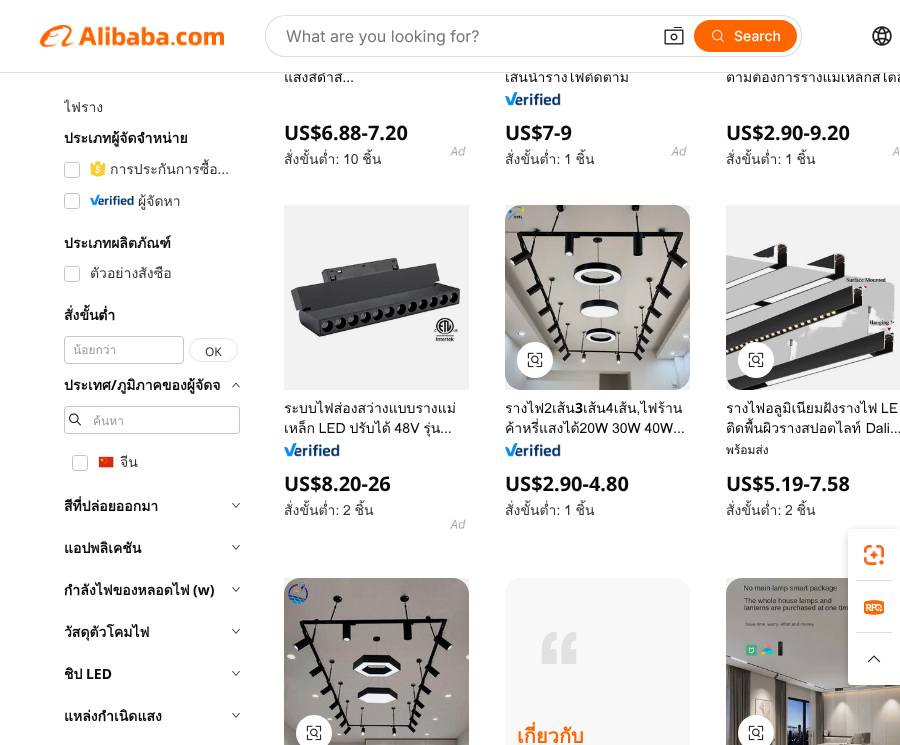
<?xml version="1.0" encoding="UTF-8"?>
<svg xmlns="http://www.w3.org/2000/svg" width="900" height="745">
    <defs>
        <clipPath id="clip1"><rect x="64" y="96" width="176" height="21"/></clipPath>
        <clipPath id="clip2"><rect x="138" y="191" width="43" height="19"/></clipPath>
        <clipPath id="clip3"><rect x="90" y="266" width="82" height="14"/></clipPath>
        <clipPath id="clip4"><rect x="64" y="294" width="51" height="42"/></clipPath>
        <clipPath id="clip5"><rect x="73" y="340" width="102" height="19"/></clipPath>
        <clipPath id="clip6"><rect x="93" y="411" width="138" height="19"/></clipPath>
        <clipPath id="clip7"><rect x="120" y="452" width="18" height="20"/></clipPath>
        <clipPath id="clip8"><rect x="64" y="485" width="94" height="42"/></clipPath>
        <clipPath id="clip9"><rect x="64" y="569" width="151" height="42"/></clipPath>
        <clipPath id="clip10"><rect x="64" y="611" width="86" height="42"/></clipPath>
        <clipPath id="clip11"><rect x="64" y="653" width="48" height="42"/></clipPath>
        <clipPath id="clip12"><rect x="505" y="398" width="185" height="40"/></clipPath>
        <clipPath id="clip13"><rect x="726" y="398" width="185" height="40"/></clipPath>
        <filter id="blur1" x="-50%" y="-200%" width="200%" height="500%"><feGaussianBlur stdDeviation="3"/></filter>
    </defs>
    <rect width="100%" height="100%" fill="#FFFFFF"/>
    <text x="284" y="82" font-family="Loma" font-size="14" fill="#0C0A09">แสงสีดำสี…</text>
    <text x="505" y="82" font-family="Loma" font-size="14" fill="#0C0A09">เส้นนำรางไฟติดตาม</text>
    <text x="726" y="82" font-family="Loma" font-size="14" fill="#0C0A09">ตามต้องการรางแม่เหล็กสไตล</text>
    <rect x="301" y="69" width="585" height="3" fill="#FFFFFF"/>
    <rect x="0" y="72" width="900" height="1" fill="#DDDDDD"/>
    <image x="40" y="25" width="184" height="22" href="img_01.png"/>
    <rect x="265" y="15" width="537" height="42" rx="20" fill="#DDDDDD"/>
    <rect x="266" y="16" width="535" height="40" rx="19" fill="#FFFFFF"/>
    <text x="286" y="42" font-family="Inter" font-size="16" fill="#767676">What are you looking for?</text>
    <image x="664" y="27" width="20" height="18" href="img_02.png"/>
    <rect x="694" y="20" width="103" height="32" rx="16" fill="#FF6600"/>
    <image x="712" y="30" width="12" height="12" href="img_03.png"/>
    <text x="734" y="41" font-family="Inter" font-size="14" font-weight="500" fill="#FFFFFF">Search</text>
    <image x="872" y="26" width="20" height="20" href="img_04.png"/>
    <g clip-path="url(#clip1)">
        <text x="64" y="112" font-family="Loma" font-size="14" fill="#333333">ไฟราง</text>
    </g>
    <text x="64" y="143" font-family="Loma" font-size="14" font-weight="700" fill="#0C0A09">ประเภทผู้จัดจำหน่าย</text>
    <rect x="64.5" y="162.5" width="15" height="15" rx="2.5" fill="none" stroke="#C4C6CF"/>
    <image x="90" y="161" width="16" height="16" href="img_05.png"/>
    <text x="110" y="174" font-family="Loma" font-size="14" fill="#333333">การประกันการซื้อ…</text>
    <rect x="64.5" y="193.5" width="15" height="15" rx="2.5" fill="none" stroke="#C4C6CF"/>
    <image x="90" y="194" width="44" height="12" href="img_06.png"/>
    <g clip-path="url(#clip2)">
        <text x="138" y="206" font-family="Loma" font-size="14" fill="#333333">ผู้จัดหา</text>
    </g>
    <text x="64" y="248" font-family="Loma" font-size="14" font-weight="700" fill="#0C0A09">ประเภทผลิตภัณฑ์</text>
    <rect x="64.5" y="266.5" width="15" height="15" rx="2.5" fill="none" stroke="#C4C6CF"/>
    <g clip-path="url(#clip3)">
        <text x="90" y="278" font-family="Loma" font-size="14" fill="#333333">ตัวอย่างสั่งซื้อ</text>
    </g>
    <g clip-path="url(#clip4)">
        <text x="64" y="320" font-family="Loma" font-size="14" font-weight="700" fill="#0C0A09">สั่งขั้นต่ำ</text>
    </g>
    <rect x="64.5" y="336.5" width="119" height="27" rx="3.5" fill="none" stroke="#C4C6CF"/>
    <g clip-path="url(#clip5)">
        <text x="73" y="354" font-family="Loma" font-size="12" fill="#999999">น้อยกว่า</text>
    </g>
    <rect x="189.5" y="338.5" width="48" height="23" rx="11.5" fill="none" stroke="#E7E5E4"/>
    <text x="205" y="356" font-family="Noto Sans" font-size="12" fill="#333333">OK</text>
    <text x="64" y="390" font-family="Loma" font-size="14" font-weight="700" fill="#0C0A09">ประเทศ</text>
    <text x="111" y="390" font-family="Noto Sans" font-size="14" font-weight="700" fill="#0C0A09">/</text>
    <text x="117" y="390" font-family="Loma" font-size="14" font-weight="700" fill="#0C0A09">ภูมิภาคของผู้จัดจ</text>
    <image x="232" y="382" width="8" height="6" href="img_07.png"/>
    <rect x="64.5" y="406.5" width="175" height="27" rx="2.5" fill="none" stroke="#C4C6CF"/>
    <image x="69" y="413" width="12" height="13" href="img_08.png"/>
    <g clip-path="url(#clip6)">
        <text x="93" y="425" font-family="Loma" font-size="12" fill="#999999">ค้นหา</text>
    </g>
    <rect x="72.5" y="455.5" width="15" height="15" rx="2.5" fill="none" stroke="#C4C6CF"/>
    <image x="98" y="456" width="16" height="12" href="img_09.png"/>
    <g clip-path="url(#clip7)">
        <text x="120" y="467" font-family="Loma" font-size="14" fill="#333333">จีน</text>
    </g>
    <g clip-path="url(#clip8)">
        <text x="64" y="511" font-family="Loma" font-size="14" font-weight="700" fill="#0C0A09">สีที่ปล่อยออกมา</text>
    </g>
    <image x="232" y="503" width="8" height="5" href="img_10.png"/>
    <text x="64" y="553" font-family="Loma" font-size="14" font-weight="700" fill="#0C0A09">แอปพลิเคชัน</text>
    <image x="232" y="545" width="8" height="5" href="img_10.png"/>
    <g clip-path="url(#clip9)">
        <text x="64" y="595" font-family="Loma" font-size="14" font-weight="700" fill="#0C0A09">กำลังไฟของหลอดไฟ</text>
    </g>
    <text x="193" y="595" font-family="Noto Sans" font-size="14" font-weight="700" fill="#0C0A09">(w)</text>
    <image x="232" y="587" width="8" height="5" href="img_10.png"/>
    <g clip-path="url(#clip10)">
        <text x="64" y="637" font-family="Loma" font-size="14" font-weight="700" fill="#0C0A09">วัสดุตัวโคมไฟ</text>
    </g>
    <image x="232" y="629" width="8" height="5" href="img_10.png"/>
    <g clip-path="url(#clip11)">
        <text x="64" y="679" font-family="Loma" font-size="14" font-weight="700" fill="#0C0A09">ชิป</text>
    </g>
    <text x="86" y="679" font-family="Noto Sans" font-size="14" font-weight="700" fill="#0C0A09">LED</text>
    <image x="232" y="671" width="8" height="5" href="img_10.png"/>
    <text x="64" y="721" font-family="Loma" font-size="14" font-weight="700" fill="#0C0A09">แหล่งกำเนิดแสง</text>
    <image x="232" y="713" width="8" height="5" href="img_10.png"/>
    <text x="284" y="140" font-family="Noto Sans" font-size="20" font-weight="700" fill="#0C0A09">US$6.88-7.20</text>
    <text x="284" y="164" word-spacing="-1" font-family="Loma" font-size="14" fill="#333333">สั่งขั้นต่ำ: 10 ชิ้น</text>
    <image x="450" y="146" width="16" height="10" href="img_11.png"/>
    <image x="505" y="92" width="56" height="14" href="img_12.png"/>
    <text x="505" y="140" font-family="Noto Sans" font-size="20" font-weight="700" fill="#0C0A09">US$7-9</text>
    <text x="505" y="164" word-spacing="-1" font-family="Loma" font-size="14" fill="#333333">สั่งขั้นต่ำ: 1 ชิ้น</text>
    <image x="671" y="146" width="16" height="10" href="img_11.png"/>
    <text x="726" y="140" font-family="Noto Sans" font-size="20" font-weight="700" fill="#0C0A09">US$2.90-9.20</text>
    <text x="726" y="164" word-spacing="-1" font-family="Loma" font-size="14" fill="#333333">สั่งขั้นต่ำ: 1 ชิ้น</text>
    <image x="892" y="146" width="8" height="10" href="img_13.png"/>
    <image x="290" y="257" width="172" height="86" href="img_14.png"/>
    <rect x="284" y="205" width="185" height="185" fill="#000000" fill-opacity="0.05"/>
    <text font-family="Loma" font-size="14" fill="#0C0A09">
        <tspan x="284" y="413">ระบบไฟส่องสว่างแบบรางแม่</tspan>
        <tspan x="284" y="433" word-spacing="-1">เหล็ก LED ปรับได้ 48V รุ่น…</tspan>
    </text>
    <image x="284" y="443" width="56" height="14" href="img_15.png"/>
    <text x="284" y="491" font-family="Noto Sans" font-size="20" font-weight="700" fill="#0C0A09">US$8.20-26</text>
    <text x="284" y="515" word-spacing="-1" font-family="Loma" font-size="14" fill="#333333">สั่งขั้นต่ำ: 2 ชิ้น</text>
    <image x="450" y="519" width="16" height="10" href="img_11.png"/>
    <image x="505" y="205" width="185" height="185" href="img_16.png"/>
    <rect x="505" y="205" width="185" height="185" fill="#000000" fill-opacity="0.05"/>
    <circle cx="535" cy="360" r="18" fill="#FFFFFF"/>
    <image x="527" y="352" width="16" height="16" href="img_17.png"/>
    <text x="505" y="413" font-family="Loma" font-size="14" fill="#0C0A09">รางไฟ2เส้น</text>
    <text x="575" y="413" font-family="Noto Sans" font-size="14" font-weight="700" fill="#0C0A09">3</text>
    <text x="583" y="413" font-family="Loma" font-size="14" fill="#0C0A09">เส้น4เส้น,ไฟร้าน</text>
    <g clip-path="url(#clip12)">
        <text x="505" y="433" word-spacing="-1" font-family="Loma" font-size="14" fill="#0C0A09">ค้าหรี่แสงได้20W 30W 40W…</text>
    </g>
    <image x="505" y="443" width="56" height="14" href="img_12.png"/>
    <text x="505" y="491" font-family="Noto Sans" font-size="20" font-weight="700" fill="#0C0A09">US$2.90-4.80</text>
    <text x="505" y="515" word-spacing="-1" font-family="Loma" font-size="14" fill="#333333">สั่งขั้นต่ำ: 1 ชิ้น</text>
    <image x="726" y="242" width="169" height="148" href="img_18.png"/>
    <rect x="726" y="205" width="174" height="185" fill="#000000" fill-opacity="0.05"/>
    <circle cx="756" cy="360" r="18" fill="#FFFFFF"/>
    <image x="748" y="352" width="16" height="16" href="img_17.png"/>
    <text x="726" y="413" word-spacing="-1" font-family="Loma" font-size="14" fill="#0C0A09">รางไฟอลูมิเนียมฝังรางไฟ LE</text>
    <g clip-path="url(#clip13)">
        <text x="726" y="433" font-family="Loma" font-size="14" fill="#0C0A09">ติดพื้นผิวรางสปอตไลท์ Dali…</text>
    </g>
    <text x="726" y="454" font-family="Loma" font-size="12" fill="#0C0A09">พร้อมส่ง</text>
    <text x="726" y="491" font-family="Noto Sans" font-size="20" font-weight="700" fill="#0C0A09">US$5.19-7.58</text>
    <text x="726" y="515" word-spacing="-1" font-family="Loma" font-size="14" fill="#333333">สั่งขั้นต่ำ: 2 ชิ้น</text>
    <image x="284" y="578" width="185" height="167" href="img_19.png"/>
    <rect x="284" y="578" width="185" height="167" fill="#000000" fill-opacity="0.05"/>
    <circle cx="314" cy="733" r="18" fill="#FFFFFF"/>
    <image x="306" y="725" width="16" height="16" href="img_17.png"/>
    <rect x="505" y="578" width="185" height="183" rx="16" fill="#F8F8F8"/>
    <image x="541" y="632" width="36" height="32" href="img_20.png"/>
    <text x="517" y="743" font-family="Loma" font-size="20" font-weight="700" fill="#FF6600">เกี่ยวกับ</text>
    <image x="726" y="578" width="174" height="167" href="img_21.png"/>
    <rect x="726" y="578" width="174" height="167" fill="#000000" fill-opacity="0.05"/>
    <circle cx="756" cy="733" r="18" fill="#FFFFFF"/>
    <image x="748" y="725" width="16" height="16" href="img_17.png"/>
    <rect x="846" y="529" width="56" height="160" rx="10" fill="#000000" fill-opacity="0.12" filter="url(#blur1)"/>
    <path d="M 856 529 H 900 V 685 H 856 C 851.5 685 848 681.5 848 677 V 537 C 848 532.5 851.5 529 856 529 Z" fill="#FFFFFF"/>
    <rect x="848" y="529" width="52" height="52" rx="4" fill="#FFFFFF"/>
    <image x="864" y="545" width="20" height="20" href="img_22.png"/>
    <rect x="856" y="580" width="36" height="1" fill="#DDDDDD"/>
    <image x="864" y="600" width="20" height="15" href="img_23.png"/>
    <rect x="856" y="632" width="36" height="1" fill="#DDDDDD"/>
    <rect x="848" y="633" width="52" height="52" rx="4" fill="#FFFFFF"/>
    <image x="867" y="655" width="14" height="8" href="img_24.png"/>
</svg>
